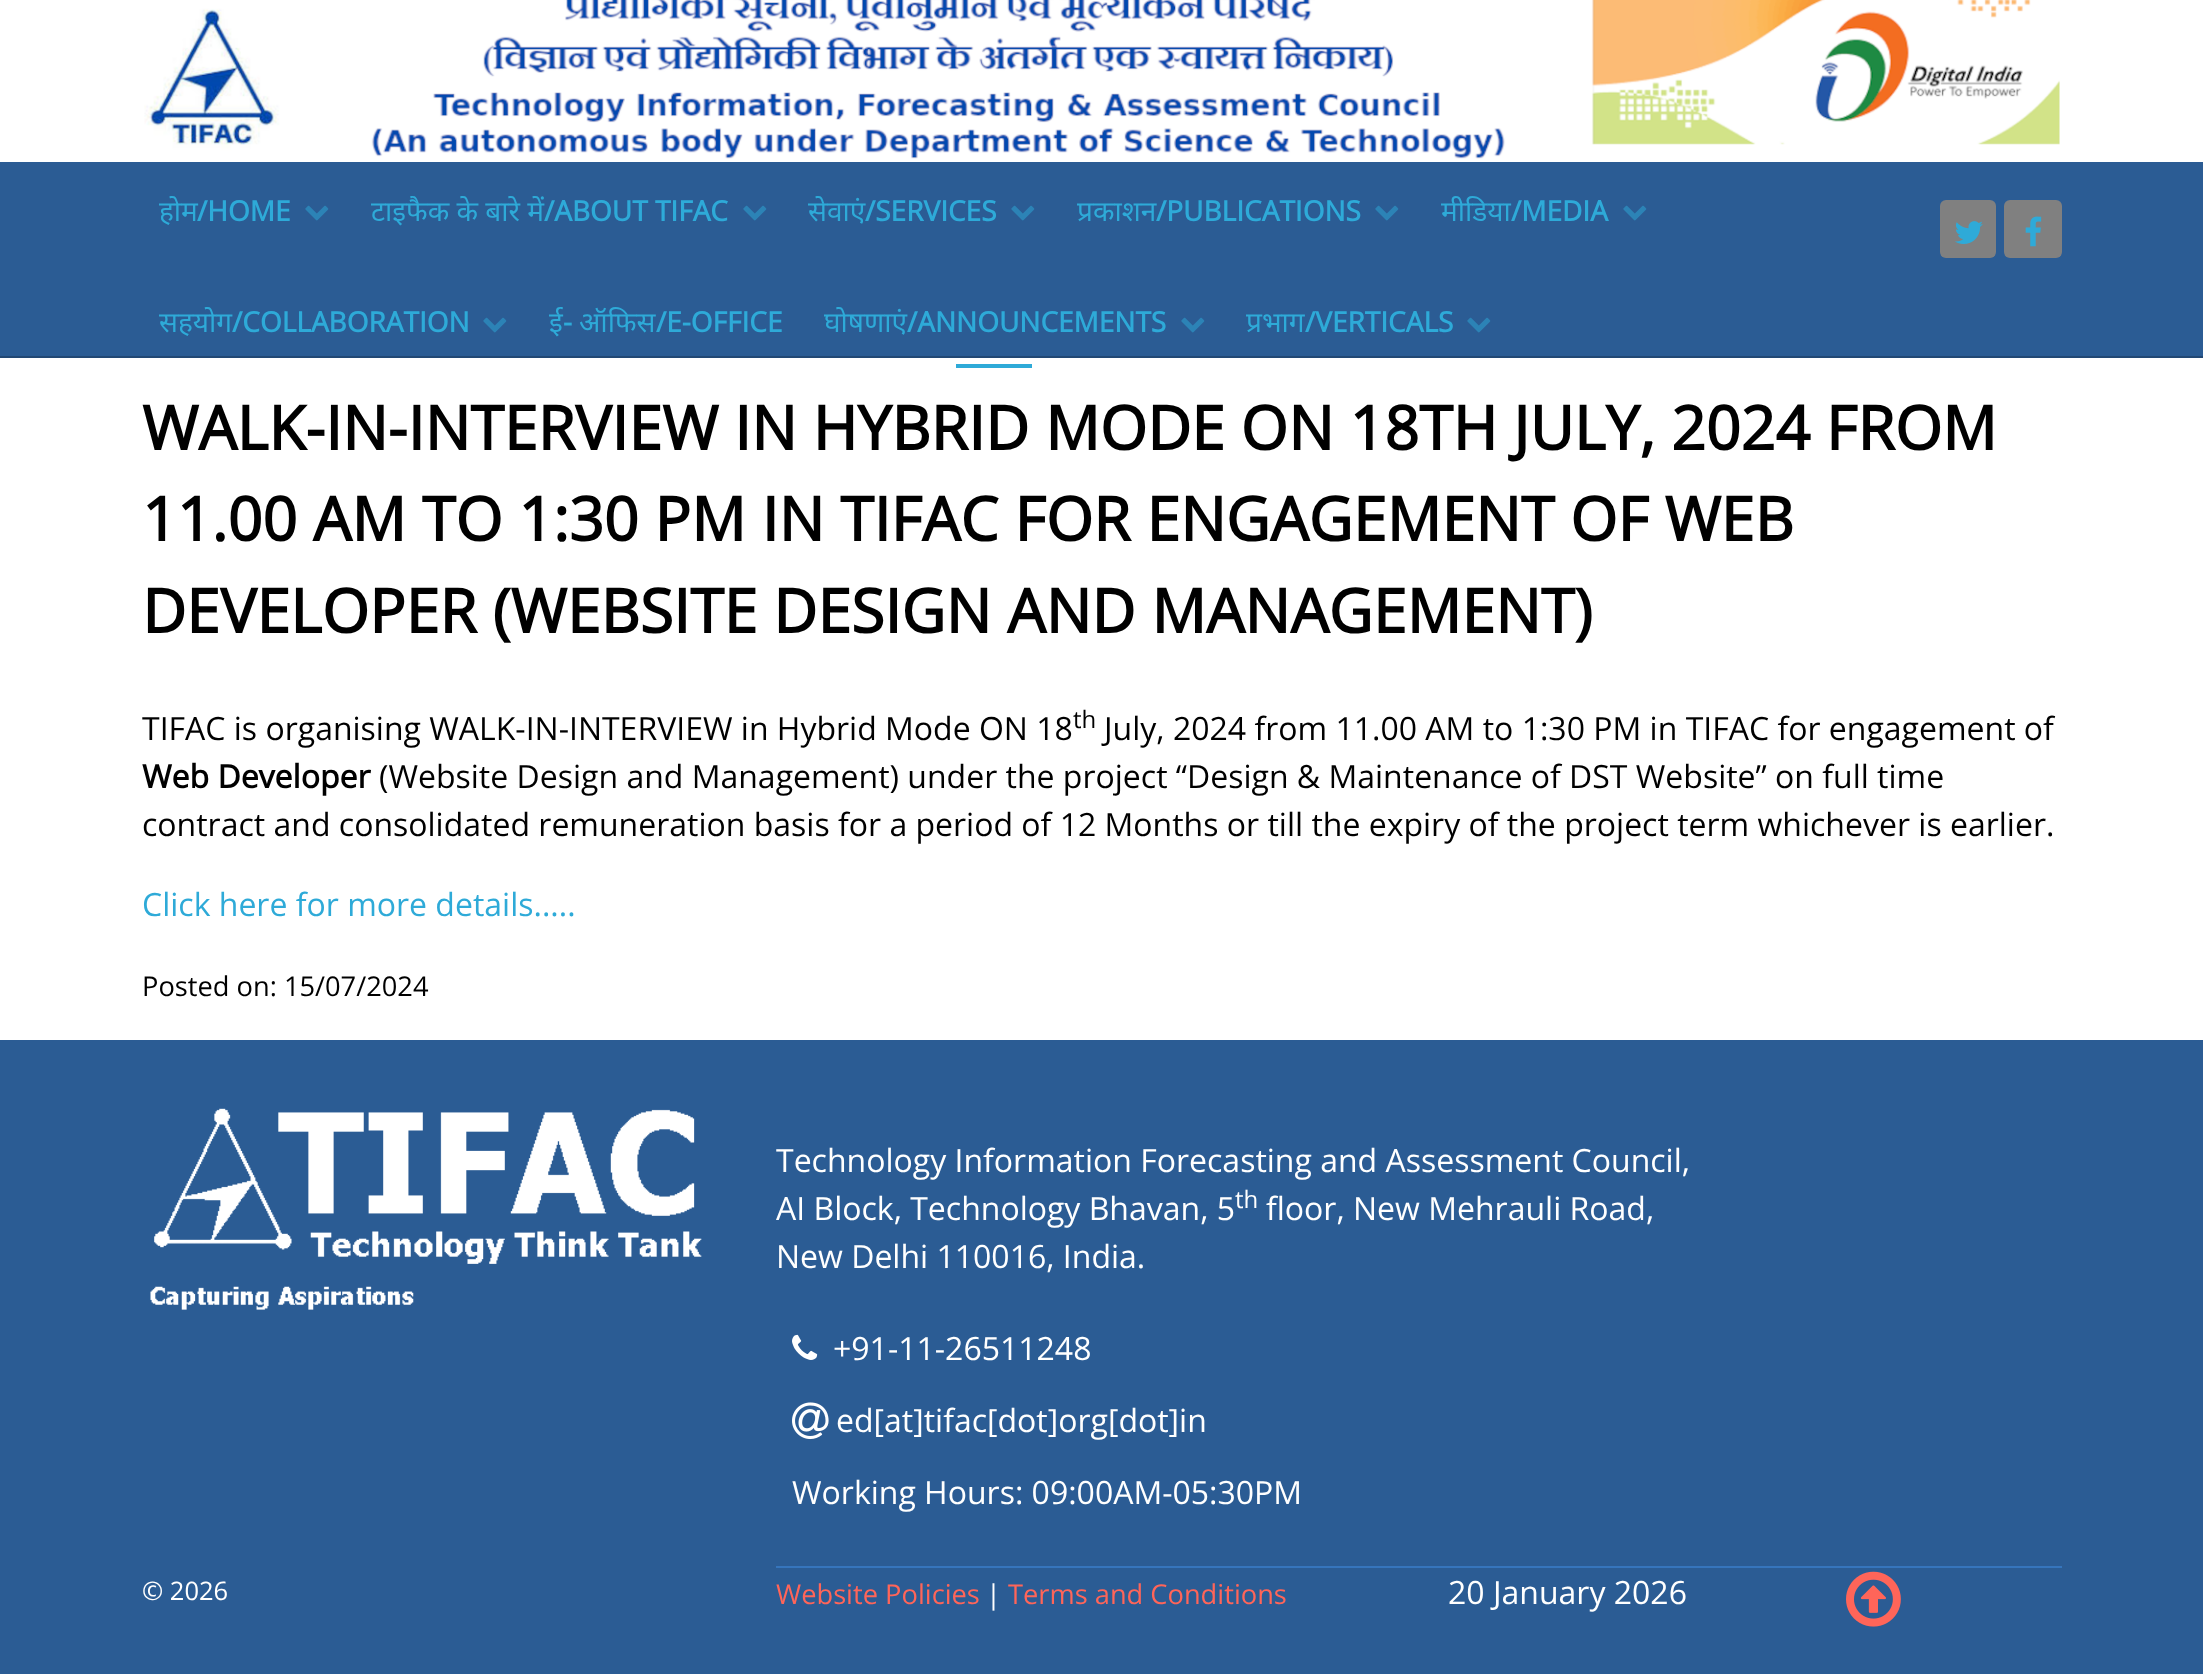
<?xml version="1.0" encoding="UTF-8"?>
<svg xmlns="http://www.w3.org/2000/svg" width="2203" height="1674">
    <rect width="100%" height="100%" fill="#FFFFFF"/>
    <image x="144" y="0" width="1916" height="159" href="img_01.png"/>
    <rect x="0" y="162" width="2203" height="194" fill="#2B5C94"/>
    <rect x="0" y="356" width="2203" height="2" fill="#224874"/>
    <text x="159" y="221" font-family="Noto Sans" font-size="28" fill="#2EAAD8">होम</text>
    <text x="197" y="221" font-family="Open Sans" font-size="28" font-weight="700" fill="#2EAAD8">/HOME</text>
    <image x="305" y="205" width="24" height="16" href="img_02.png"/>
    <text x="371" y="221" font-family="Noto Sans" font-size="28" fill="#2EAAD8">टाइफैक के बारे में</text>
    <text x="544" y="221" font-family="Open Sans" font-size="28" font-weight="700" fill="#2EAAD8">/ABOUT TIFAC</text>
    <image x="743" y="205" width="24" height="16" href="img_02.png"/>
    <text x="808" y="221" font-family="Noto Sans" font-size="28" fill="#2EAAD8">सेवाएं</text>
    <text x="865" y="221" font-family="Open Sans" font-size="28" font-weight="700" fill="#2EAAD8">/SERVICES</text>
    <image x="1011" y="205" width="24" height="16" href="img_02.png"/>
    <text x="1077" y="221" font-family="Noto Sans" font-size="28" fill="#2EAAD8">प्रकाशन</text>
    <text x="1156" y="221" font-family="Open Sans" font-size="28" font-weight="700" fill="#2EAAD8">/PUBLICATIONS</text>
    <image x="1375" y="205" width="24" height="16" href="img_02.png"/>
    <text x="1441" y="221" font-family="Noto Sans" font-size="28" fill="#2EAAD8">मीडिया</text>
    <text x="1511" y="221" font-family="Open Sans" font-size="28" font-weight="700" fill="#2EAAD8">/MEDIA</text>
    <image x="1623" y="205" width="24" height="16" href="img_02.png"/>
    <text x="159" y="332" font-family="Noto Sans" font-size="28" fill="#2EAAD8">सहयोग</text>
    <text x="232" y="332" font-family="Open Sans" font-size="28" font-weight="700" fill="#2EAAD8">/COLLABORATION</text>
    <image x="483" y="317" width="24" height="16" href="img_02.png"/>
    <text x="549" y="332" font-family="Noto Sans" font-size="28" fill="#2EAAD8">ई</text>
    <text x="563" y="332" font-family="Open Sans" font-size="28" font-weight="700" fill="#2EAAD8">-</text>
    <text x="579" y="332" font-family="Noto Sans" font-size="28" fill="#2EAAD8">ऑफिस</text>
    <text x="656" y="332" font-family="Open Sans" font-size="28" font-weight="700" fill="#2EAAD8">/E-OFFICE</text>
    <text x="824" y="332" font-family="Noto Sans" font-size="28" fill="#2EAAD8">घोषणाएं</text>
    <text x="907" y="332" font-family="Open Sans" font-size="28" font-weight="700" fill="#2EAAD8">/ANNOUNCEMENTS</text>
    <image x="1181" y="317" width="24" height="16" href="img_02.png"/>
    <rect x="956" y="364" width="76" height="4" fill="#2EAAD8"/>
    <text x="1246" y="332" font-family="Noto Sans" font-size="28" fill="#2EAAD8">प्रभाग</text>
    <text x="1305" y="332" font-family="Open Sans" font-size="28" font-weight="700" fill="#2EAAD8">/VERTICALS</text>
    <image x="1467" y="317" width="24" height="16" href="img_02.png"/>
    <rect x="1940" y="200" width="56" height="58" rx="6" fill="#808080"/>
    <image x="1955" y="221" width="28" height="23" href="img_03.png"/>
    <rect x="2004" y="200" width="58" height="58" rx="6" fill="#808080"/>
    <image x="2025" y="216" width="17" height="31" href="img_04.png"/>
    <text font-family="Open Sans" font-size="60.8" font-weight="700" fill="#000000">
        <tspan x="142" y="450">WALK-IN-INTERVIEW IN HYBRID MODE ON 18TH JULY, 2024 FROM</tspan>
        <tspan x="142" y="541">11.00 AM TO 1:30 PM IN TIFAC FOR ENGAGEMENT OF WEB</tspan>
        <tspan x="142" y="633">DEVELOPER (WEBSITE DESIGN AND MANAGEMENT)</tspan>
    </text>
    <text x="142" y="740" font-family="Open Sans" font-size="32" fill="#000000">TIFAC is organising WALK-IN-INTERVIEW in Hybrid Mode ON 18</text>
    <text x="1073" y="728" font-family="Open Sans" font-size="24" fill="#000000">th</text>
    <text x="1104" y="740" font-family="Open Sans" font-size="32" fill="#000000">July, 2024 from 11.00 AM to 1:30 PM in TIFAC for engagement of</text>
    <text x="142" y="788" font-family="Open Sans" font-size="32" font-weight="700" fill="#000000">Web Developer</text>
    <text x="379" y="788" font-family="Open Sans" font-size="32" fill="#000000">(Website Design and Management) under the project “Design &amp; Maintenance of DST Website” on full time</text>
    <text x="142" y="836" font-family="Open Sans" font-size="32" fill="#000000">contract and consolidated remuneration basis for a period of 12 Months or till the expiry of the project term whichever is earlier.</text>
    <text x="142" y="916" font-family="Open Sans" font-size="32" fill="#2EAAD8">Click here for more details.....</text>
    <text x="142" y="996" font-family="Open Sans" font-size="27.25" fill="#000000">Posted on: 15/07/2024</text>
    <rect x="0" y="1040" width="2203" height="634" fill="#2B5C94"/>
    <image x="150" y="1108" width="552" height="202" href="img_05.png"/>
    <text font-family="Open Sans" font-size="32" fill="#FFFFFF">
        <tspan x="776" y="1172">Technology Information Forecasting and Assessment Council,</tspan>
        <tspan x="776" y="1220">AI Block, Technology Bhavan, 5</tspan>
    </text>
    <text x="1235" y="1208" font-family="Open Sans" font-size="24" fill="#FFFFFF">th</text>
    <text x="1266" y="1220" font-family="Open Sans" font-size="32" fill="#FFFFFF">floor, New Mehrauli Road,</text>
    <text x="776" y="1268" font-family="Open Sans" font-size="32" fill="#FFFFFF">New Delhi 110016, India.</text>
    <image x="792" y="1334" width="26" height="26" href="img_06.png"/>
    <text x="833" y="1360" font-family="Open Sans" font-size="32" fill="#FFFFFF">+91-11-26511248</text>
    <image x="792" y="1402" width="37" height="38" href="img_07.png"/>
    <text x="836" y="1432" font-family="Open Sans" font-size="32" fill="#FFFFFF">ed[at]tifac[dot]org[dot]in</text>
    <text x="792" y="1504" font-family="Open Sans" font-size="32" fill="#FFFFFF">Working Hours: 09:00AM-05:30PM</text>
    <rect x="776" y="1566" width="1286" height="2" fill="#3675BC"/>
    <text x="142" y="1600" font-family="Open Sans" font-size="25.5" fill="#FFFFFF">© 2026</text>
    <text x="776" y="1604" font-family="Open Sans" font-size="27.25" fill="#FF6559">Website Policies</text>
    <text x="986" y="1604" font-family="Open Sans" font-size="27.25" fill="#FFFFFF">|</text>
    <text x="1008" y="1604" font-family="Open Sans" font-size="27.25" fill="#FF6559">Terms and Conditions</text>
    <text x="1448" y="1604" font-family="Open Sans" font-size="32" fill="#FFFFFF">20 January 2026</text>
    <image x="1846" y="1571" width="55" height="56" href="img_08.png"/>
</svg>
